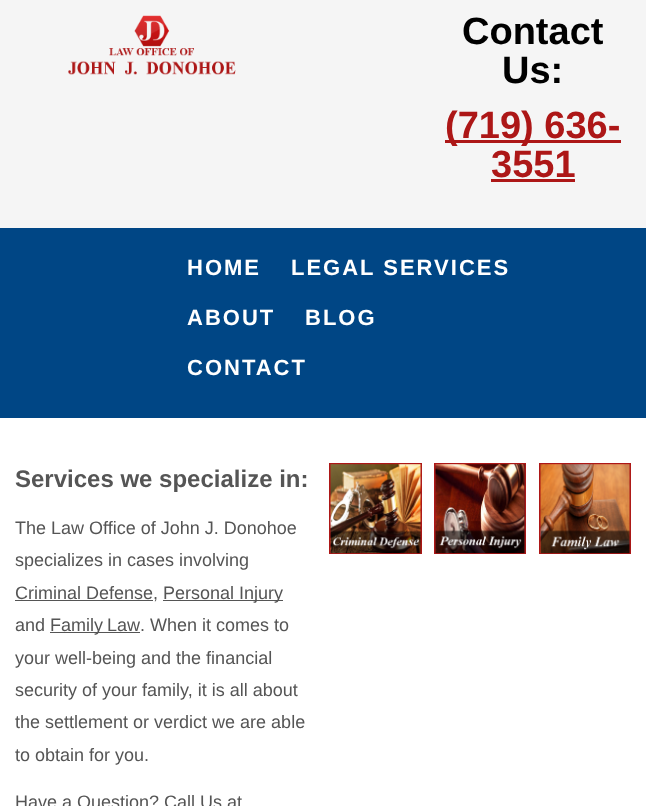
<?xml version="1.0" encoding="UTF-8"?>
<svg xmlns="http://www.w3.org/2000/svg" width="646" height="806">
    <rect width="100%" height="100%" fill="#F5F5F5"/>
    <image x="68" y="15" width="168" height="60" href="img_01.png"/>
    <text x="462" y="44" font-family="Liberation Sans" font-size="38" font-weight="700" fill="#000000">Contact</text>
    <text x="502" y="83" font-family="Liberation Sans" font-size="38" font-weight="700" fill="#000000">Us:</text>
    <rect x="445" y="140" width="176" height="3" fill="#AD1717"/>
    <text x="445" y="138" font-family="Liberation Sans" font-size="38" font-weight="700" fill="#AD1717">(719) 636-</text>
    <text x="491" y="177" font-family="Liberation Sans" font-size="38" font-weight="700" fill="#AD1717">3551</text>
    <rect x="491" y="179" width="84" height="3" fill="#AD1717"/>
    <rect x="0" y="228" width="646" height="190" fill="#004685"/>
    <text x="187" y="275" font-family="Liberation Sans" font-size="22" font-weight="700" letter-spacing="2" fill="#FFFFFF">HOME</text>
    <text x="291" y="275" font-family="Liberation Sans" font-size="22" font-weight="700" letter-spacing="2" fill="#FFFFFF">LEGAL SERVICES</text>
    <text x="187" y="325" font-family="Liberation Sans" font-size="22" font-weight="700" letter-spacing="2" fill="#FFFFFF">ABOUT</text>
    <text x="305" y="325" font-family="Liberation Sans" font-size="22" font-weight="700" letter-spacing="2" fill="#FFFFFF">BLOG</text>
    <text x="187" y="375" font-family="Liberation Sans" font-size="22" font-weight="700" letter-spacing="2" fill="#FFFFFF">CONTACT</text>
    <rect x="0" y="418" width="646" height="388" fill="#FFFFFF"/>
    <text x="15" y="487" font-family="Liberation Sans" font-size="24" font-weight="700" fill="#555555">Services we specialize in:</text>
    <text font-family="Liberation Sans" font-size="18" fill="#555555">
        <tspan x="15" y="534">The Law Office of John J. Donohoe</tspan>
        <tspan x="15" y="566">specializes in cases involving</tspan>
    </text>
    <rect x="15" y="600" width="138" height="1" fill="#555555"/>
    <text x="15" y="599" font-family="Liberation Sans" font-size="18" fill="#555555">Criminal Defense,</text>
    <rect x="163" y="600" width="120" height="1" fill="#555555"/>
    <text x="163" y="599" font-family="Liberation Sans" font-size="18" fill="#555555">Personal Injury</text>
    <text x="15" y="631" font-family="Liberation Sans" font-size="18" fill="#555555">and</text>
    <rect x="50" y="632" width="90" height="1" fill="#555555"/>
    <text x="50" y="631" word-spacing="-1" font-family="Liberation Sans" font-size="18" fill="#555555">Family Law</text>
    <text x="140" y="631" font-family="Liberation Sans" font-size="18" fill="#555555">. When it comes to</text>
    <text font-family="Liberation Sans" font-size="18" fill="#555555">
        <tspan x="15" y="664">your well-being and the financial</tspan>
        <tspan x="15" y="696">security of your family, it is all about</tspan>
        <tspan x="15" y="728">the settlement or verdict we are able</tspan>
        <tspan x="15" y="761">to obtain for you.</tspan>
    </text>
    <text x="15" y="808" font-family="Liberation Sans" font-size="18" fill="#555555">Have a Question? Call Us at</text>
    <image x="329" y="463" width="93" height="91" href="img_02.png"/>
    <image x="434" y="463" width="92" height="91" href="img_03.png"/>
    <image x="539" y="463" width="92" height="91" href="img_04.png"/>
</svg>
